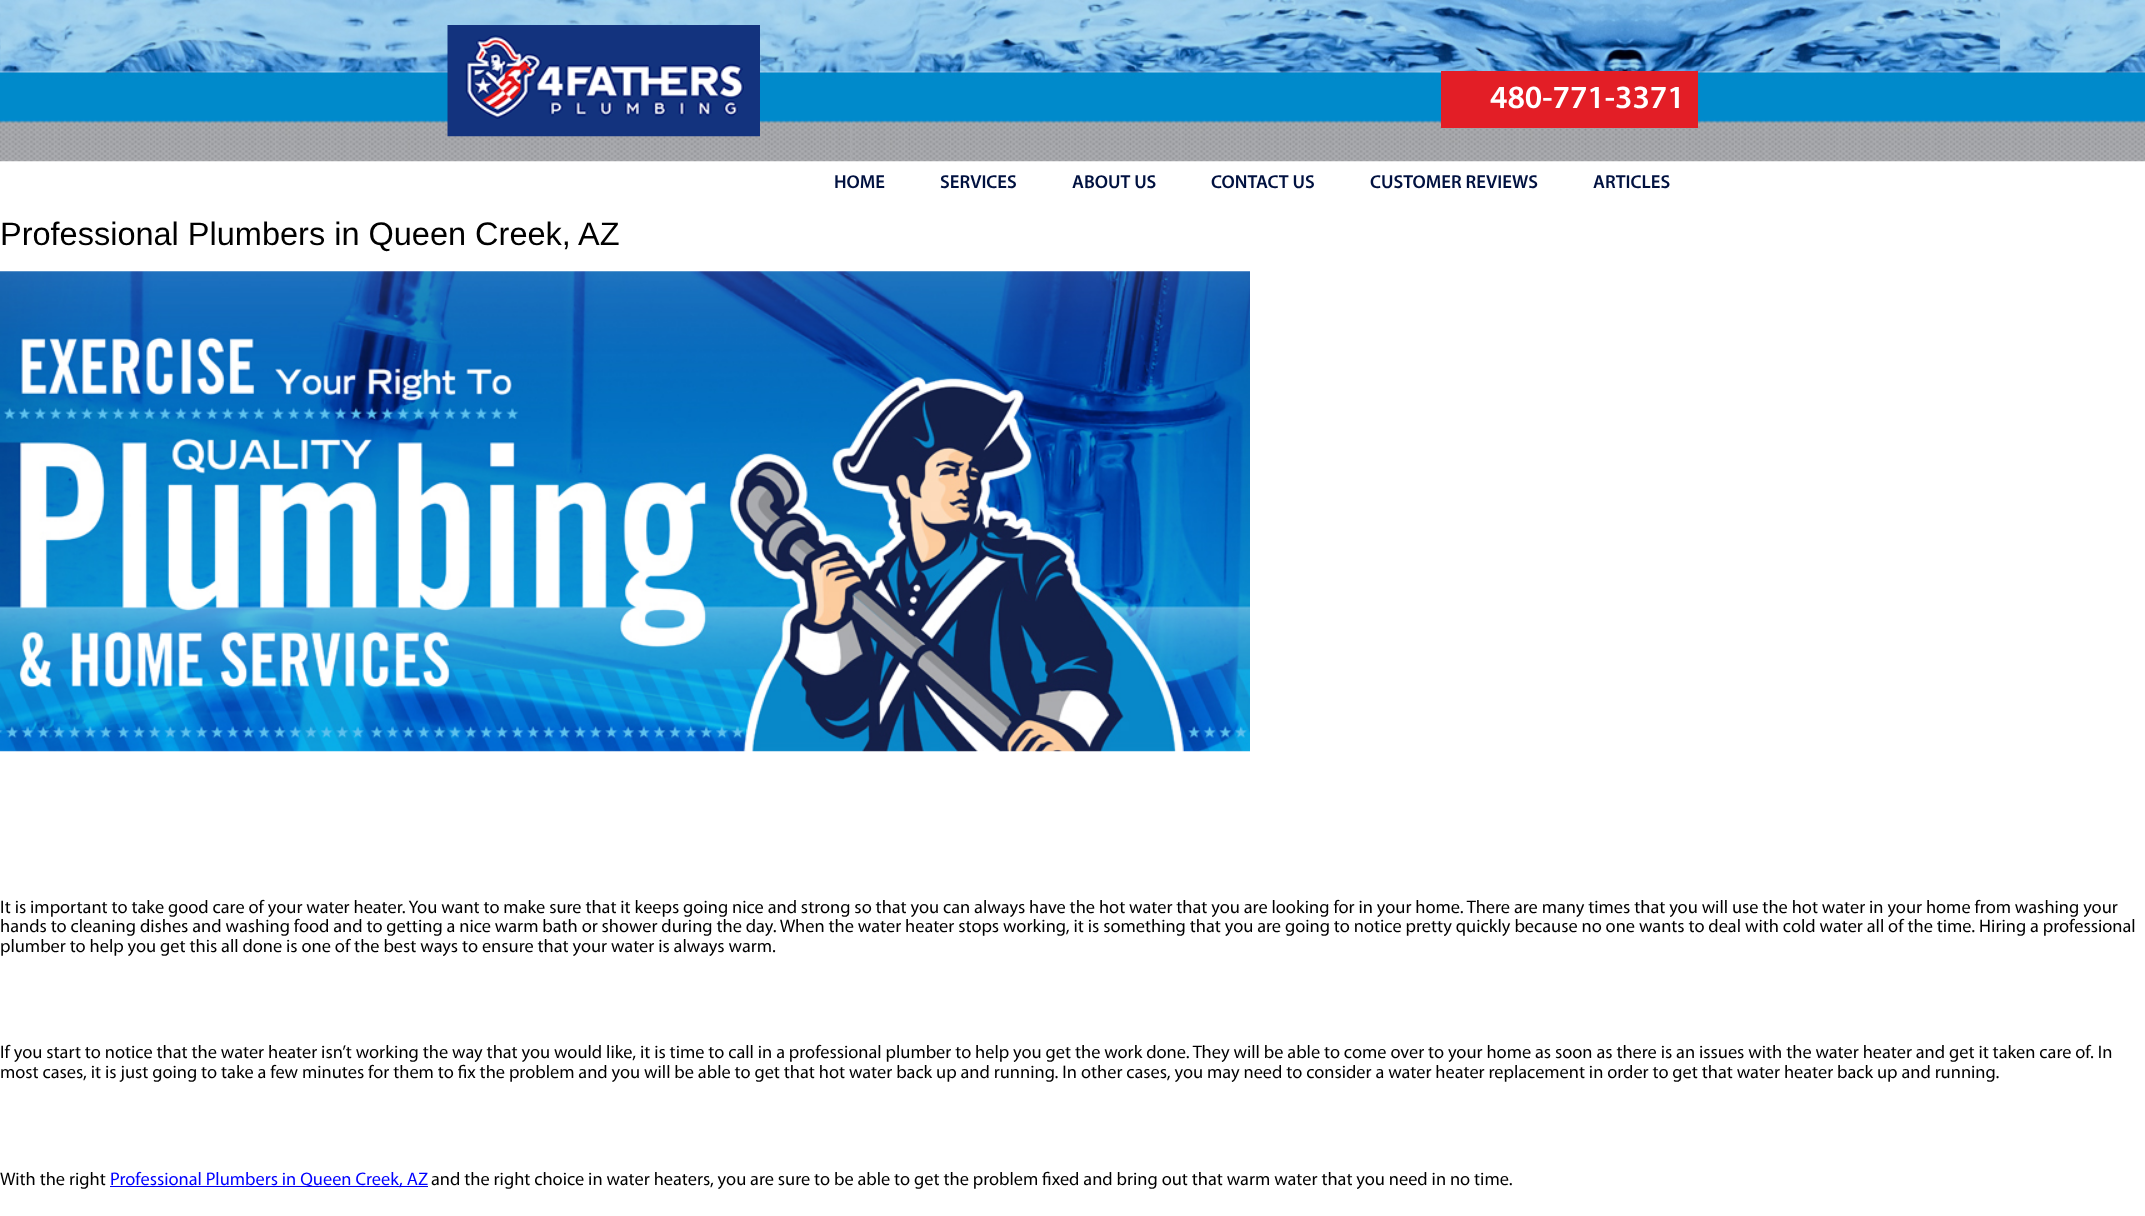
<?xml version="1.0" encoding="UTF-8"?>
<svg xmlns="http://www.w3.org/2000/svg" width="2145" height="1216">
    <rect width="100%" height="100%" fill="#FFFFFF"/>
    <image x="0" y="0" width="2145" height="162" href="img_01.png"/>
    <image x="447" y="25" width="313" height="112" href="img_02.png"/>
    <rect x="1441" y="71" width="257" height="57" fill="#E31E26"/>
    <text x="1490" y="108" font-family="Myriad" font-size="32.5" font-weight="600" fill="#FFFFFF">480-771-3371</text>
    <text x="0" y="245" font-family="Liberation Sans" font-size="32.5" fill="#000000">Professional Plumbers in Queen Creek, AZ</text>
    <image x="0" y="271" width="1250" height="481" href="img_03.png"/>
    <text font-family="Myriad" font-size="18.33" fill="#000000">
        <tspan x="0" y="913">It is important to take good care of your water heater. You want to make sure that it keeps going nice and strong so that you can always have the hot water that you are looking for in your home. There are many times that you will use the hot water in your home from washing your</tspan>
        <tspan x="0" y="932">hands to cleaning dishes and washing food and to getting a nice warm bath or shower during the day. When the water heater stops working, it is something that you are going to notice pretty quickly because no one wants to deal with cold water all of the time. Hiring a professional</tspan>
        <tspan x="0" y="952">plumber to help you get this all done is one of the best ways to ensure that your water is always warm.</tspan>
    </text>
    <text font-family="Myriad" font-size="18.33" fill="#000000">
        <tspan x="0" y="1058">If you start to notice that the water heater isn’t working the way that you would like, it is time to call in a professional plumber to help you get the work done. They will be able to come over to your home as soon as there is an issues with the water heater and get it taken care of. In</tspan>
        <tspan x="0" y="1078">most cases, it is just going to take a few minutes for them to fix the problem and you will be able to get that hot water back up and running. In other cases, you may need to consider a water heater replacement in order to get that water heater back up and running.</tspan>
    </text>
    <text x="0" y="1185" font-family="Myriad" font-size="18.33" fill="#000000">With the right</text>
    <rect x="110" y="1186" width="318" height="1" fill="#0000EE"/>
    <text x="110" y="1185" font-family="Myriad" font-size="18.33" fill="#0000FF">Professional Plumbers in Queen Creek, AZ</text>
    <text x="431" y="1185" font-family="Myriad" font-size="18.33" fill="#000000">and the right choice in water heaters, you are sure to be able to get the problem fixed and bring out that warm water that you need in no time.</text>
    <text x="834" y="188" font-family="Myriad" font-size="18.75" font-weight="600" fill="#001140">HOME</text>
    <text x="940" y="188" font-family="Myriad" font-size="18.75" font-weight="600" fill="#001140">SERVICES</text>
    <text x="1072" y="188" font-family="Myriad" font-size="18.75" font-weight="600" fill="#001140">ABOUT US</text>
    <text x="1211" y="188" font-family="Myriad" font-size="18.75" font-weight="600" fill="#001140">CONTACT US</text>
    <text x="1370" y="188" font-family="Myriad" font-size="18.75" font-weight="600" fill="#001140">CUSTOMER REVIEWS</text>
    <text x="1593" y="188" font-family="Myriad" font-size="18.75" font-weight="600" fill="#001140">ARTICLES</text>
</svg>
